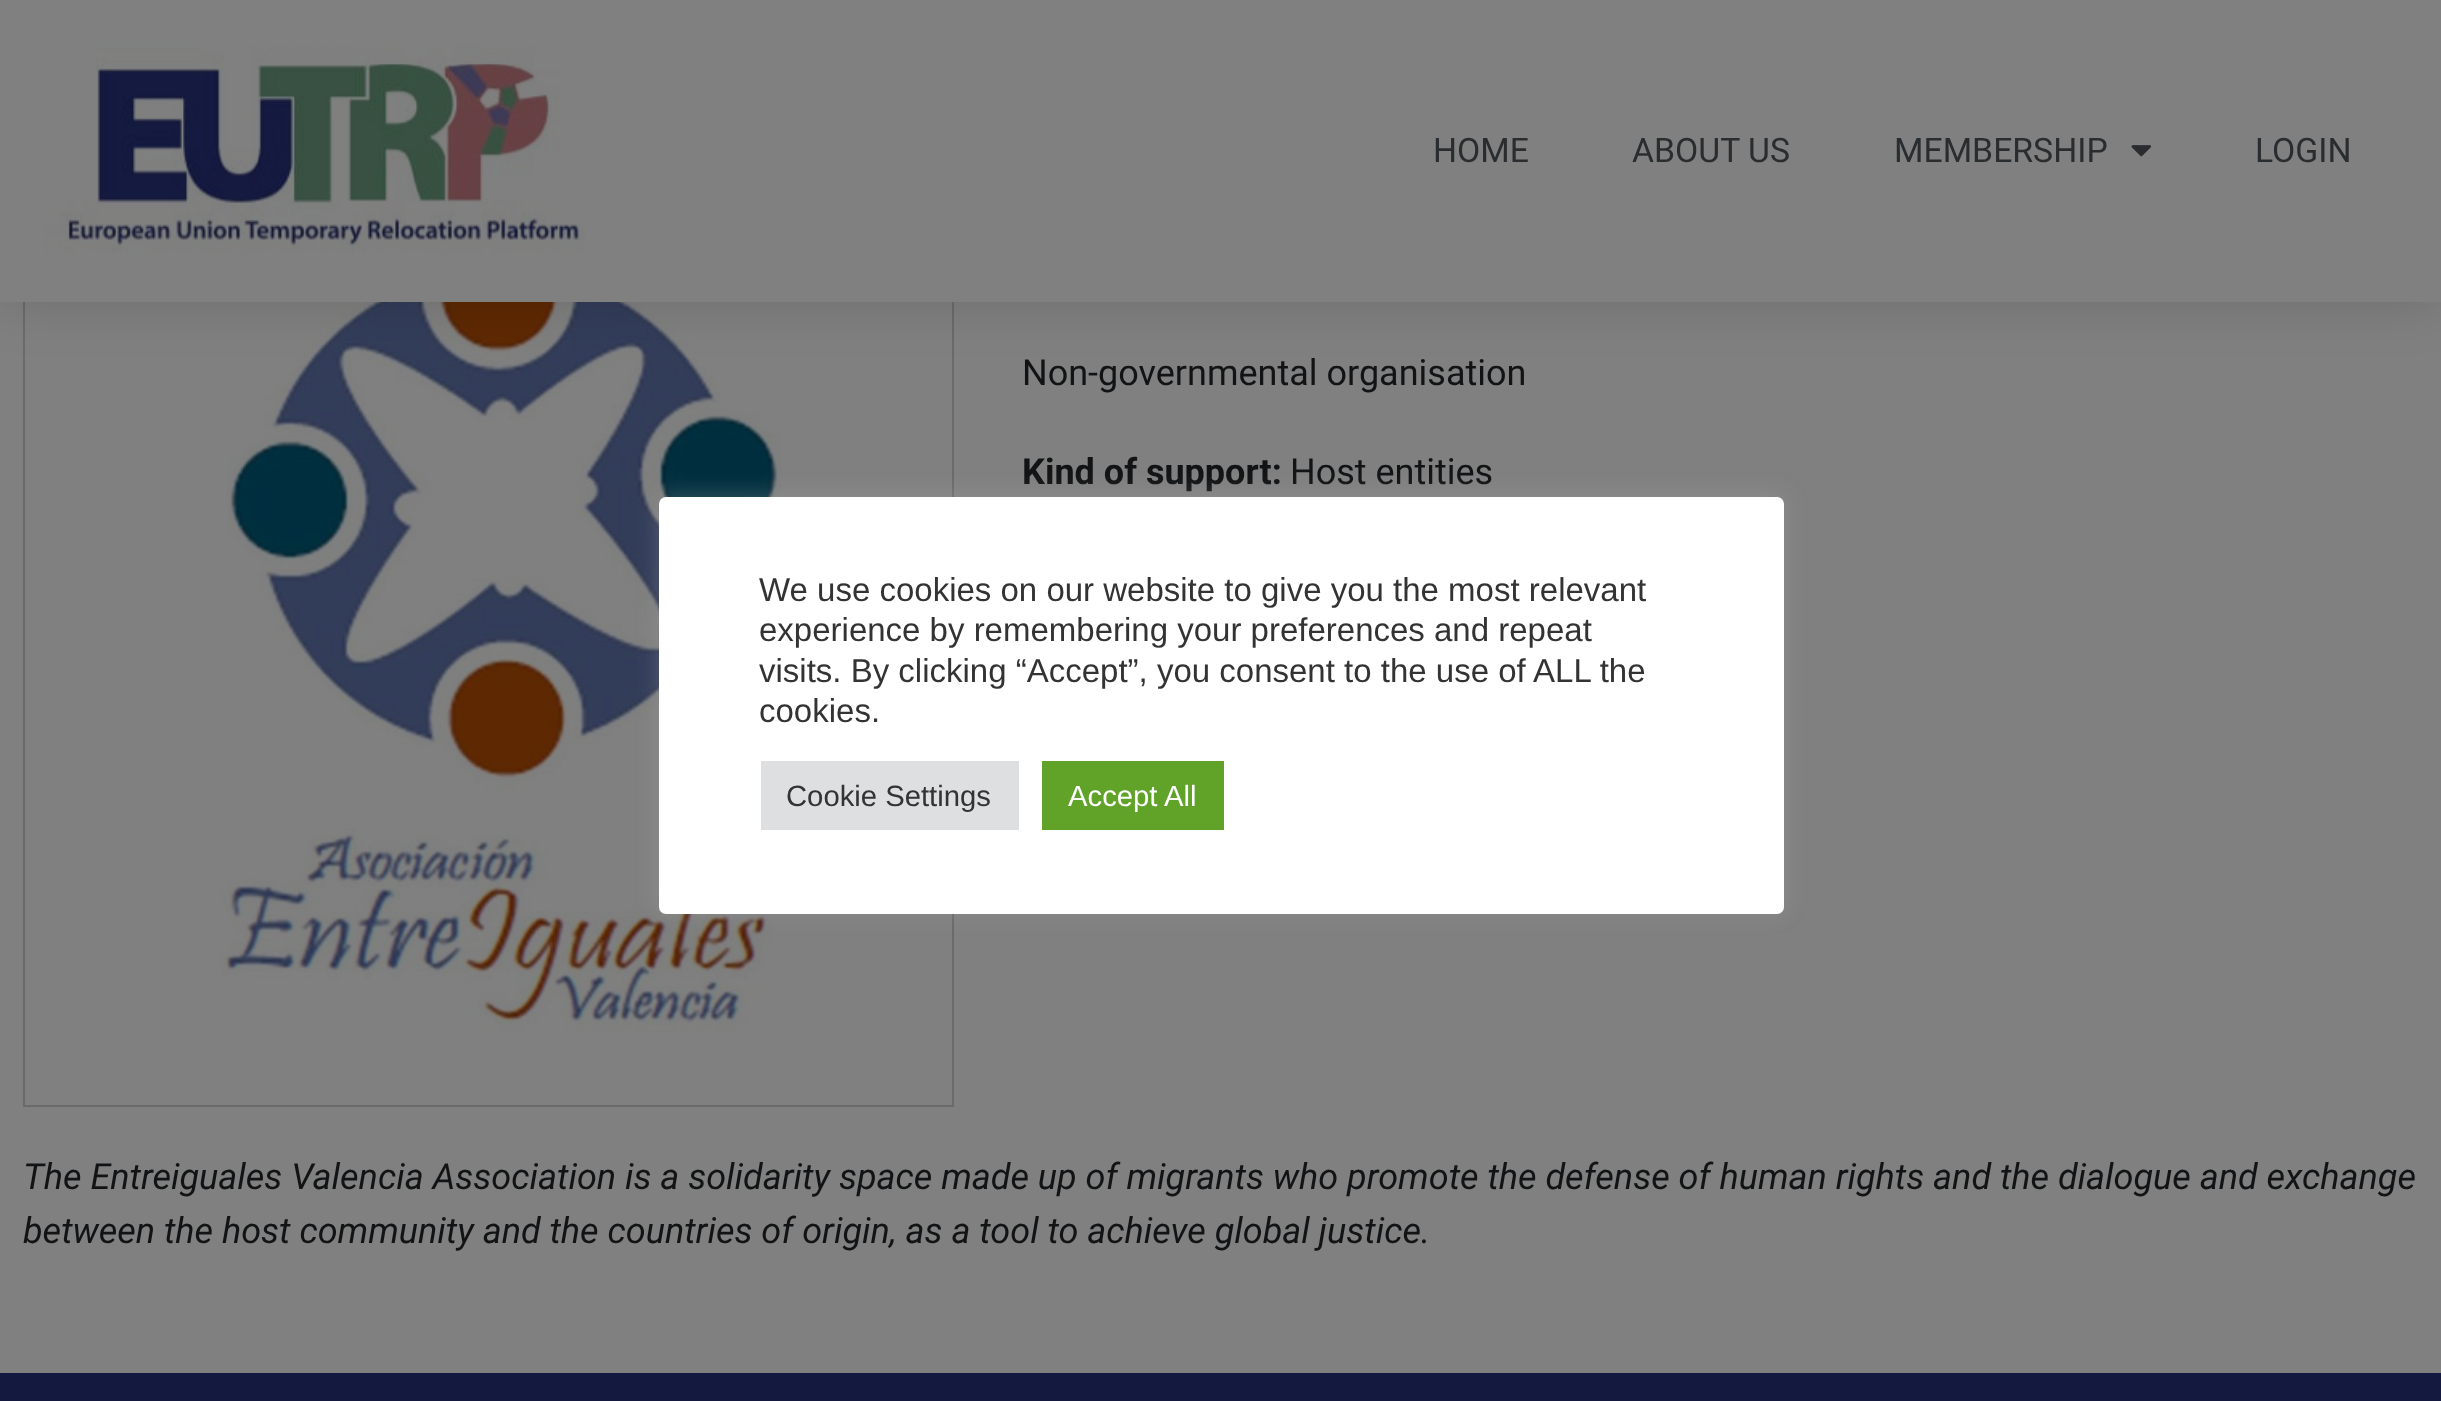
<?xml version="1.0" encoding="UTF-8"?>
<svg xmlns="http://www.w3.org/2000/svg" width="2441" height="1401">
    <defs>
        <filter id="blur1" x="-50%" y="-200%" width="200%" height="500%"><feGaussianBlur stdDeviation="27"/></filter>
        <filter id="blur2" x="-50%" y="-200%" width="200%" height="500%"><feGaussianBlur stdDeviation="11"/></filter>
    </defs>
    <rect width="100%" height="100%" fill="#808080"/>
    <rect x="24" y="177" width="929" height="929" fill="none" stroke="#6A6A6A" stroke-width="2"/>
    <image x="221" y="302" width="561" height="730" href="img_03.png"/>
    <rect x="0" y="0" width="2441" height="302" fill="#000000" fill-opacity="0.15" filter="url(#blur1)"/>
    <rect x="0" y="0" width="2441" height="302" fill="#808080"/>
    <image x="45" y="45" width="540" height="208" href="img_01.png"/>
    <text x="1433" y="162" font-family="Roboto" font-size="33.75" fill="#2A2D30">HOME</text>
    <text x="1632" y="162" font-family="Roboto" font-size="33.75" fill="#2A2D30">ABOUT US</text>
    <text x="1894" y="162" font-family="Roboto" font-size="33.75" fill="#2A2D30">MEMBERSHIP</text>
    <image x="2131" y="145" width="21" height="12" href="img_02.png"/>
    <text x="2255" y="162" font-family="Roboto" font-size="33.75" fill="#2A2D30">LOGIN</text>
    <text x="1022" y="385" font-family="Roboto" font-size="36" fill="#111315">Non-governmental organisation</text>
    <text x="1022" y="484" font-family="Roboto" font-size="36" font-weight="700" fill="#111315">Kind of support:</text>
    <text x="1290" y="484" font-family="Roboto" font-size="36" fill="#111315">Host entities</text>
    <text font-family="Roboto" font-size="36" font-style="italic" fill="#111315">
        <tspan x="23" y="1189">The Entreiguales Valencia Association is a solidarity space made up of migrants who promote the defense of human rights and the dialogue and exchange</tspan>
        <tspan x="23" y="1243">between the host community and the countries of origin, as a tool to achieve global justice.</tspan>
    </text>
    <rect x="0" y="1373" width="2441" height="28" fill="#141A3F"/>
    <rect x="659" y="495" width="1125" height="416" rx="7" fill="#ACABAB" fill-opacity="0.3" filter="url(#blur2)"/>
    <rect x="659" y="497" width="1125" height="417" rx="7" fill="#FFFFFF"/>
    <text font-family="Liberation Sans" font-size="33" fill="#333333">
        <tspan x="759" y="601">We use cookies on our website to give you the most relevant</tspan>
        <tspan x="759" y="641">experience by remembering your preferences and repeat</tspan>
        <tspan x="759" y="682">visits. By clicking “Accept”, you consent to the use of ALL the</tspan>
        <tspan x="759" y="722">cookies.</tspan>
    </text>
    <rect x="761" y="761" width="258" height="69" fill="#DEDFE0"/>
    <text x="786" y="806" font-family="Liberation Sans" font-size="29.25" fill="#333333">Cookie Settings</text>
    <rect x="1042" y="761" width="182" height="69" fill="#61A229"/>
    <text x="1068" y="806" font-family="Liberation Sans" font-size="29.25" fill="#FFFFFF">Accept All</text>
</svg>
